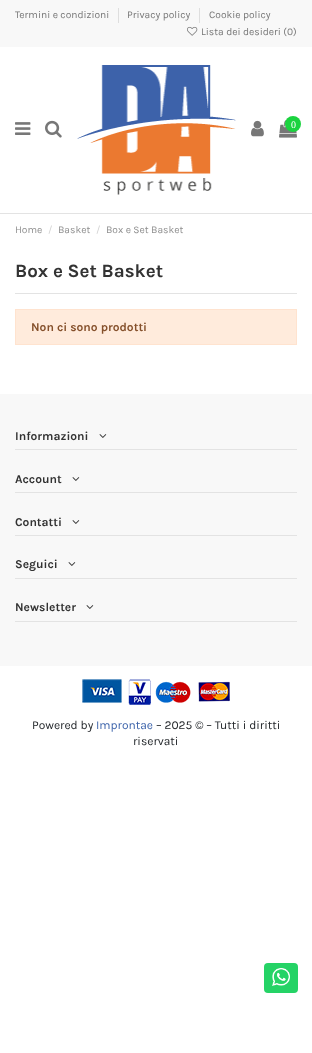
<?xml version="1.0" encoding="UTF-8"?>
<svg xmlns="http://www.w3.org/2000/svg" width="312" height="1053">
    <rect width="100%" height="100%" fill="#FFFFFF"/>
    <rect x="0" y="0" width="312" height="47" fill="#F8F8F8"/>
    <text x="15" y="18" font-family="Karla" font-size="10.25" fill="#777777">Termini e condizioni</text>
    <rect x="118" y="8" width="1" height="15" fill="#DEDEDE"/>
    <text x="127" y="18" font-family="Karla" font-size="10.25" fill="#777777">Privacy policy</text>
    <rect x="199" y="8" width="1" height="15" fill="#DEDEDE"/>
    <text x="209" y="18" font-family="Karla" font-size="10.25" fill="#777777">Cookie policy</text>
    <image x="187" y="26" width="11" height="10" href="img_01.png"/>
    <text x="201" y="35" font-family="Karla" font-size="10.25" fill="#777777">Lista dei desideri (0)</text>
    <rect x="0" y="213" width="312" height="1" fill="#E3E3E3"/>
    <image x="15" y="122" width="16" height="13" href="img_02.png"/>
    <image x="45" y="120" width="17" height="18" href="img_03.png"/>
    <image x="77" y="65" width="159" height="130" href="img_04.png"/>
    <image x="251" y="120" width="13" height="17" href="img_05.png"/>
    <image x="279" y="119" width="18" height="19" href="img_06.png"/>
    <circle cx="293" cy="124" r="8" fill="#1BD33F"/>
    <text x="291" y="128" font-family="Liberation Serif" font-size="10" fill="#FFFFFF">0</text>
    <text x="15" y="233" font-family="Karla" font-size="10.25" fill="#8F8F8F">Home</text>
    <text x="48" y="233" font-family="Karla" font-size="10.25" fill="#D2D2D2">/</text>
    <text x="58" y="233" font-family="Karla" font-size="10.25" fill="#8F8F8F">Basket</text>
    <text x="96" y="233" font-family="Karla" font-size="10.25" fill="#D2D2D2">/</text>
    <text x="106" y="233" font-family="Karla" font-size="10.25" fill="#8F8F8F">Box e Set Basket</text>
    <rect x="15" y="293" width="282" height="1" fill="#E3E3E3"/>
    <text x="15" y="277" font-family="Karla" font-size="18.75" font-weight="700" fill="#333333">Box e Set Basket</text>
    <rect x="15.5" y="309.5" width="281" height="35" fill="#FFEBDC" stroke="#FFE3CF"/>
    <text x="31" y="331" font-family="Karla" font-size="12" font-weight="700" fill="#85502B">Non ci sono prodotti</text>
    <rect x="0" y="394" width="312" height="272" fill="#F8F8F8"/>
    <rect x="15" y="449" width="282" height="1" fill="#E3E3E3"/>
    <text x="15" y="440" font-family="Karla" font-size="12" font-weight="700" fill="#333333">Informazioni</text>
    <image x="99" y="434" width="8" height="4" href="img_07.png"/>
    <rect x="15" y="492" width="282" height="1" fill="#E3E3E3"/>
    <text x="15" y="483" font-family="Karla" font-size="12" font-weight="700" fill="#333333">Account</text>
    <image x="72" y="477" width="8" height="4" href="img_07.png"/>
    <rect x="15" y="535" width="282" height="1" fill="#E3E3E3"/>
    <text x="15" y="526" font-family="Karla" font-size="12" font-weight="700" fill="#333333">Contatti</text>
    <image x="72" y="520" width="8" height="4" href="img_07.png"/>
    <rect x="15" y="578" width="282" height="1" fill="#E3E3E3"/>
    <text x="15" y="568" font-family="Karla" font-size="12" font-weight="700" fill="#333333">Seguici</text>
    <image x="68" y="562" width="8" height="4" href="img_07.png"/>
    <rect x="15" y="621" width="282" height="1" fill="#E3E3E3"/>
    <text x="15" y="611" font-family="Karla" font-size="12" font-weight="700" fill="#333333">Newsletter</text>
    <image x="86" y="605" width="8" height="4" href="img_07.png"/>
    <image x="82" y="679" width="148" height="26" href="img_08.png"/>
    <text x="32" y="729" font-family="Karla" font-size="12" fill="#212529">Powered by</text>
    <text x="96" y="729" font-family="Karla" font-size="12" fill="#3B62AA">Improntae</text>
    <text x="156" y="729" font-family="Karla" font-size="12" fill="#212529">– 2025 © – Tutti i diritti</text>
    <text x="133" y="745" font-family="Karla" font-size="12" fill="#212529">riservati</text>
    <rect x="264" y="963" width="34" height="30" rx="4" fill="#25D366"/>
    <image x="272" y="968" width="18" height="18" href="img_09.png"/>
</svg>
